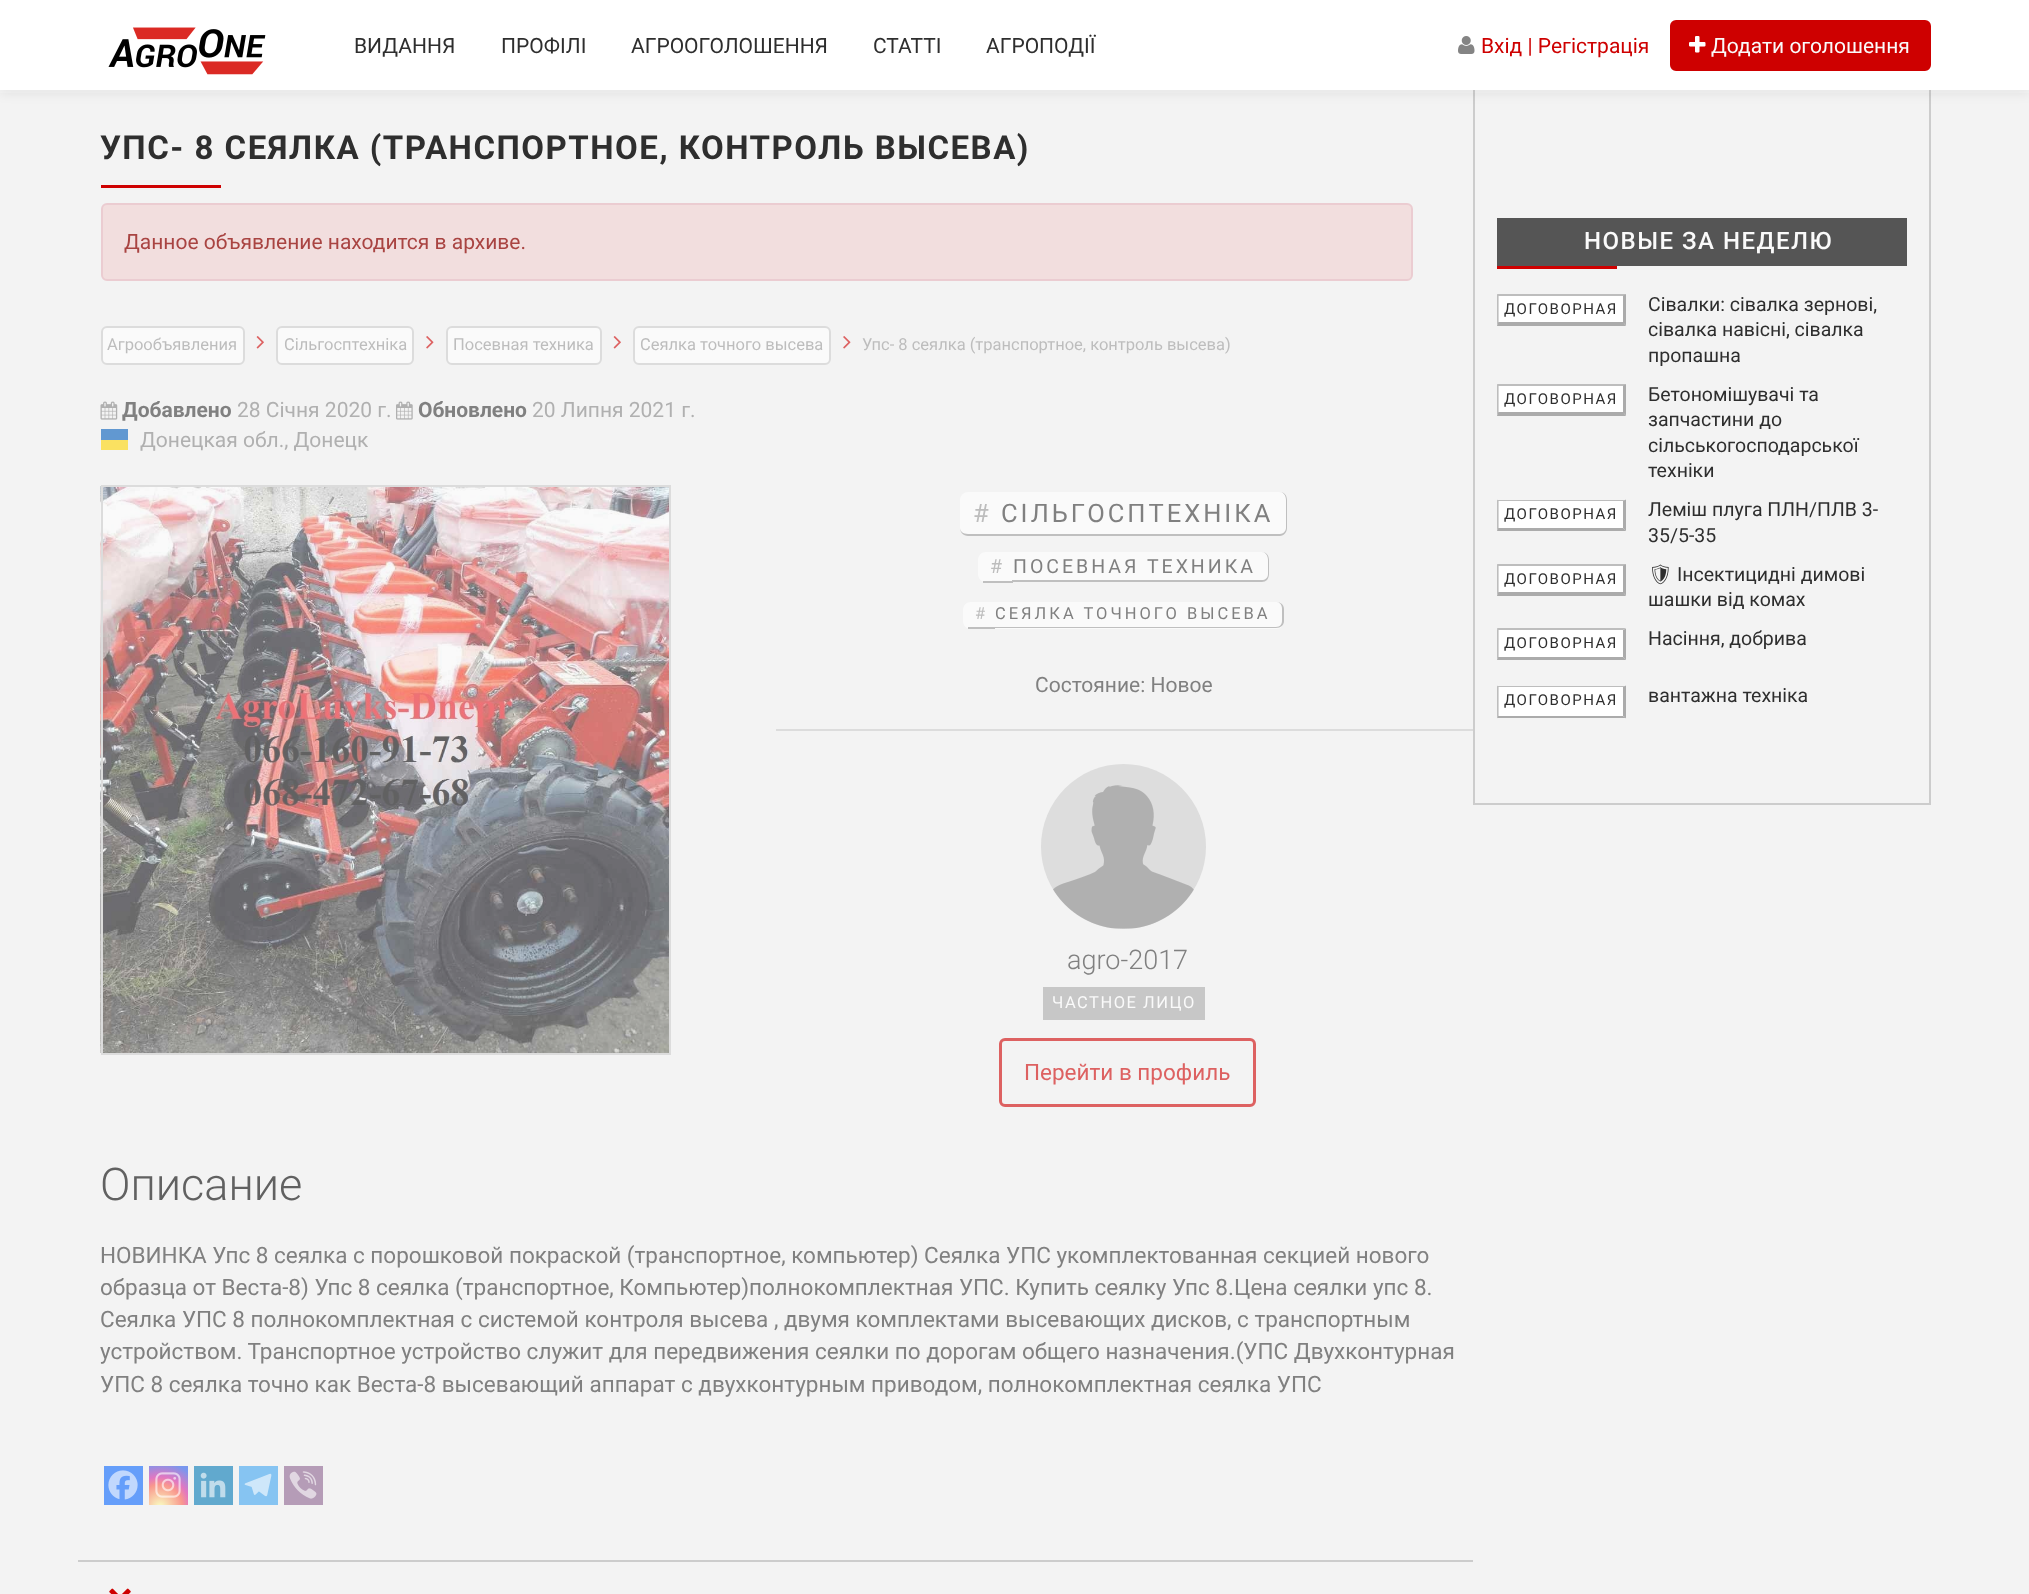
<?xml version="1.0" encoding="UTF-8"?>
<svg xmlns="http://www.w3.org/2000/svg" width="2029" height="1594">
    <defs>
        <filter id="blur1" x="-50%" y="-200%" width="200%" height="500%"><feGaussianBlur stdDeviation="6"/></filter>
        <radialGradient id="g1" gradientUnits="userSpaceOnUse" cx="160" cy="1507" r="50"><stop offset="0" stop-color="#F9F4BC"/><stop offset="0.05" stop-color="#F9F4BC"/><stop offset="0.45" stop-color="#F9978D"/><stop offset="0.6" stop-color="#E277C1"/><stop offset="0.9" stop-color="#7997EE"/></radialGradient>
    </defs>
    <rect width="100%" height="100%" fill="#F3F3F3"/>
    <rect x="1929" y="83" width="2" height="721" fill="#CCCCCC"/>
    <rect x="1473" y="803" width="458" height="2" fill="#CCCCCC"/>
    <rect x="1473" y="83" width="2" height="721" fill="#CCCCCC"/>
    <rect x="0" y="3" width="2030" height="90" fill="#323232" fill-opacity="0.08" filter="url(#blur1)"/>
    <rect x="0" y="0" width="2029" height="90" fill="#FFFFFF"/>
    <image x="108" y="27" width="158" height="48" href="img_01.png"/>
    <text x="354" y="53" font-family="Roboto" font-size="21" fill="#2E2E2E">ВИДАННЯ</text>
    <text x="501" y="53" font-family="Roboto" font-size="21" fill="#2E2E2E">ПРОФІЛІ</text>
    <text x="631" y="53" font-family="Roboto" font-size="21" fill="#2E2E2E">АГРООГОЛОШЕННЯ</text>
    <text x="873" y="53" font-family="Roboto" font-size="21" fill="#2E2E2E">СТАТТІ</text>
    <text x="986" y="53" font-family="Roboto" font-size="21" fill="#2E2E2E">АГРОПОДІЇ</text>
    <image x="1458" y="36" width="17" height="18" href="img_02.png"/>
    <text x="1481" y="53" font-family="Roboto" font-size="21" fill="#CE0000">Вхід | Регістрація</text>
    <rect x="1671" y="21" width="259" height="49" rx="5" fill="#CE0000" stroke="#CE0000" stroke-width="2"/>
    <image x="1689" y="36" width="17" height="17" href="img_03.png"/>
    <text x="1711" y="53" font-family="Roboto" font-size="21" fill="#FAFAFA">Додати оголошення</text>
    <text x="100" y="159" font-family="Roboto" font-size="33" font-weight="700" letter-spacing="1.5" fill="#2E2E2E">УПС- 8 СЕЯЛКА (ТРАНСПОРТНОЕ, КОНТРОЛЬ ВЫСЕВА)</text>
    <rect x="101" y="185" width="120" height="3" fill="#CE0000"/>
    <rect x="102" y="204" width="1310" height="76" rx="5" fill="#F2DEDE" stroke="#EBCCD1" stroke-width="2"/>
    <text x="124" y="249" font-family="Roboto" font-size="21" fill="#A94442">Данное объявление находится в архиве.</text>
    <rect x="102" y="327" width="142" height="37" rx="5" fill="#FAFAFA" stroke="#DCDCDC" stroke-width="2"/>
    <text x="107" y="350" font-family="Roboto" font-size="16.5" fill="#BDBDBD">Агрообъявления</text>
    <image x="256" y="336" width="8" height="13" href="img_04.png"/>
    <rect x="277" y="327" width="136" height="37" rx="5" fill="#FAFAFA" stroke="#DCDCDC" stroke-width="2"/>
    <text x="284" y="350" font-family="Roboto" font-size="16.5" fill="#BDBDBD">Сільгосптехніка</text>
    <image x="426" y="336" width="8" height="13" href="img_05.png"/>
    <rect x="447" y="327" width="154" height="37" rx="5" fill="#FAFAFA" stroke="#DCDCDC" stroke-width="2"/>
    <text x="453" y="350" font-family="Roboto" font-size="16.5" fill="#BDBDBD">Посевная техника</text>
    <image x="613" y="336" width="8" height="13" href="img_04.png"/>
    <rect x="634" y="327" width="196" height="37" rx="5" fill="#FAFAFA" stroke="#DCDCDC" stroke-width="2"/>
    <text x="640" y="350" font-family="Roboto" font-size="16.5" fill="#BDBDBD">Сеялка точного высева</text>
    <image x="843" y="336" width="8" height="13" href="img_05.png"/>
    <text x="862" y="350" font-family="Roboto" font-size="16.5" fill="#BDBDBD">Упс- 8 сеялка (транспортное, контроль высева)</text>
    <image x="100" y="401" width="18" height="19" href="img_06.png"/>
    <text x="122" y="417" font-family="Roboto" font-size="21" font-weight="700" fill="#808080">Добавлено</text>
    <text x="237" y="417" font-family="Roboto" font-size="21" fill="#B0B0B0">28 Січня 2020 г.</text>
    <image x="396" y="401" width="17" height="19" href="img_07.png"/>
    <text x="418" y="417" font-family="Roboto" font-size="21" font-weight="700" fill="#808080">Обновлено</text>
    <text x="532" y="417" font-family="Roboto" font-size="21" fill="#B0B0B0">20 Липня 2021 г.</text>
    <rect x="101" y="440" width="27" height="10" fill="#FAE161"/>
    <rect x="101" y="429" width="27" height="11" fill="#6198D1"/>
    <text x="140" y="447" font-family="Roboto" font-size="21" fill="#B0B0B0">Донецкая обл., Донецк</text>
    <image x="100" y="486" width="569" height="567" href="img_08.png"/>
    <rect x="102" y="486" width="568" height="568" fill="none" stroke="#DCDCDC" stroke-width="2"/>
    <rect x="960" y="492" width="327" height="44" rx="8" fill="#FAFAFA"/>
    <path d="M 968 492 H 1280 C 1284 492 1287 495 1287 500 V 528 C 1287 532 1284 536 1280 536 H 968 C 963 536 960 532 960 528 V 500 C 960 495 963 492 968 492 Z M 968 492 H 1280 C 1283 492 1286 495 1286 500 V 528 C 1286 531 1283 534 1280 534 H 968 C 963 534 960 531 960 528 V 500 C 960 495 963 492 968 492 Z" fill="#BFBFBF" fill-rule="evenodd"/>
    <text x="973" y="522" font-family="Roboto" font-size="25.5" letter-spacing="3" fill="#BDBDBD">#</text>
    <text x="1001" y="522" font-family="Roboto" font-size="25.5" letter-spacing="3" fill="#808080">СІЛЬГОСПТЕХНІКА</text>
    <path d="M 986 552 H 1013 V 582 H 986 C 981.5 582 978 578.5 978 574 V 560 C 978 555.5 981.5 552 986 552 Z" fill="#FAFAFA"/>
    <text x="990" y="573" font-family="Roboto" font-size="19.5" letter-spacing="3" fill="#BDBDBD">#</text>
    <rect x="983" y="581" width="30" height="2" fill="#BFBFBF"/>
    <path d="M 1013 552 H 1261 C 1265.5 552 1269 555.5 1269 560 V 574 C 1269 578.5 1265.5 582 1261 582 H 1013 Z" fill="#FAFAFA"/>
    <path d="M 1012 552 H 1262 C 1266 552 1269 555 1269 560 V 574 C 1269 579 1266 582 1262 582 H 1012 Z M 1012 552 H 1262 C 1265 552 1268 555 1268 560 V 574 C 1268 578 1265 580 1262 580 H 1012 Z" fill="#BFBFBF" fill-rule="evenodd"/>
    <text x="1013" y="573" font-family="Roboto" font-size="19.5" letter-spacing="3" fill="#808080">ПОСЕВНАЯ ТЕХНИКА</text>
    <path d="M 971 602 H 995 V 629 H 971 C 966.5 629 963 625.5 963 621 V 610 C 963 605.5 966.5 602 971 602 Z" fill="#FAFAFA"/>
    <text x="975" y="619" font-family="Roboto" font-size="16.5" letter-spacing="3" fill="#BDBDBD">#</text>
    <path d="M 995 602 H 1276 C 1280.5 602 1284 605.5 1284 610 V 621 C 1284 625.5 1280.5 629 1276 629 H 995 Z" fill="#FAFAFA"/>
    <rect x="968" y="627" width="27" height="2" fill="#BFBFBF"/>
    <path d="M 994 602 H 1276 C 1281 602 1284 605 1284 609 V 621 C 1284 625 1281 628 1276 628 H 994 Z M 994 602 H 1276 C 1280 602 1282 605 1282 609 V 621 C 1282 624 1280 627 1276 627 H 994 Z" fill="#BFBFBF" fill-rule="evenodd"/>
    <text x="995" y="619" font-family="Roboto" font-size="16.5" letter-spacing="3" fill="#808080">СЕЯЛКА ТОЧНОГО ВЫСЕВА</text>
    <text x="1035" y="692" font-family="Roboto" font-size="21" fill="#808080">Состояние: Новое</text>
    <rect x="776" y="729" width="697" height="2" fill="#DCDCDC"/>
    <circle cx="1123.5" cy="846.5" r="82.5" fill="#DDDDDD"/>
    <image x="1053" y="785" width="141" height="144" href="img_09.png"/>
    <text x="1067" y="969" font-family="Roboto" font-size="27" font-weight="300" fill="#808080">agro-2017</text>
    <rect x="1043" y="987" width="162" height="33" fill="#C7C7C7"/>
    <text x="1052" y="1008" font-family="Roboto" font-size="16.5" letter-spacing="1.5" fill="#FAFAFA">ЧАСТНОЕ ЛИЦО</text>
    <rect x="1000.5" y="1039.5" width="254" height="66" rx="4.5" fill="none" stroke="#DD6161" stroke-width="3"/>
    <text x="1024" y="1080" font-family="Roboto" font-size="22.5" fill="#DD6161">Перейти в профиль</text>
    <text x="100" y="1200" font-family="Roboto" font-size="45" font-weight="300" fill="#616161">Описание</text>
    <text font-family="Roboto" font-size="22.5" fill="#808080">
        <tspan x="100" y="1263">НОВИНКА Упс 8 сеялка с порошковой покраской (транспортное, компьютер) Сеялка УПС укомплектованная секцией нового</tspan>
        <tspan x="100" y="1295">образца от Веста-8) Упс 8 сеялка (транспортное, Компьютер)полнокомплектная УПС. Купить сеялку Упс 8.Цена сеялки упс 8.</tspan>
        <tspan x="100" y="1327">Сеялка УПС 8 полнокомплектная с системой контроля высева , двумя комплектами высевающих дисков, с транспортным</tspan>
        <tspan x="100" y="1359">устройством. Транспортное устройство служит для передвижения сеялки по дорогам общего назначения.(УПС Двухконтурная</tspan>
        <tspan x="100" y="1392">УПС 8 сеялка точно как Веста-8 высевающий аппарат с двухконтурным приводом, полнокомплектная сеялка УПС</tspan>
    </text>
    <rect x="104" y="1466" width="39" height="39" fill="#659EFA"/>
    <image x="108" y="1470" width="30" height="30" href="img_10.png"/>
    <rect x="149" y="1466" width="39" height="39" fill="url(#g1)"/>
    <image x="155" y="1472" width="26" height="26" href="img_11.png"/>
    <rect x="194" y="1466" width="39" height="39" fill="#61A9CE"/>
    <image x="200" y="1472" width="26" height="26" href="img_12.png"/>
    <rect x="239" y="1466" width="39" height="39" fill="#86C4F2"/>
    <image x="244" y="1473" width="28" height="24" href="img_13.png"/>
    <rect x="284" y="1466" width="39" height="39" fill="#B59CB7"/>
    <image x="289" y="1471" width="28" height="28" href="img_14.png"/>
    <rect x="78" y="1560" width="1395" height="2" fill="#CCCCCC"/>
    <image x="109" y="1588" width="22" height="6" href="img_15.png"/>
    <rect x="1497" y="218" width="410" height="48" fill="#555555"/>
    <text x="1584" y="249" font-family="Roboto" font-size="24" font-weight="500" letter-spacing="1.5" fill="#FAFAFA">НОВЫЕ ЗА НЕДЕЛЮ</text>
    <rect x="1497" y="266" width="120" height="3" fill="#CE0000"/>
    <rect x="1499" y="296" width="124" height="26" fill="#FFFFFF"/>
    <path d="M 1497 294 H 1626 L 1623 296 H 1498 Z" fill="#BDBDBD"/>
    <path d="M 1626 294 V 325.5 L 1623 322.5 V 295.5 Z" fill="#ABABAB"/>
    <path d="M 1626 326 H 1497 L 1498 322 H 1623 Z" fill="#ABABAB"/>
    <path d="M 1497 325.5 V 294 L 1498.5 295.5 V 322.5 Z" fill="#BDBDBD"/>
    <text x="1504" y="314" font-family="Roboto" font-size="15" letter-spacing="1.5" fill="#2E2E2E">ДОГОВОРНАЯ</text>
    <text font-family="Roboto" font-size="19.5" fill="#2E2E2E">
        <tspan x="1648" y="311">Сівалки: сівалка зернові,</tspan>
        <tspan x="1648" y="336">сівалка навісні, сівалка</tspan>
        <tspan x="1648" y="362">пропашна</tspan>
    </text>
    <rect x="1499" y="386" width="124" height="26" fill="#FFFFFF"/>
    <path d="M 1497 384 H 1626 L 1623 386 H 1498 Z" fill="#BDBDBD"/>
    <path d="M 1626 384 V 415.5 L 1623 412.5 V 385.5 Z" fill="#ABABAB"/>
    <path d="M 1626 416 H 1497 L 1498 412 H 1623 Z" fill="#ABABAB"/>
    <path d="M 1497 415.5 V 384 L 1498.5 385.5 V 412.5 Z" fill="#BDBDBD"/>
    <text x="1504" y="404" font-family="Roboto" font-size="15" letter-spacing="1.5" fill="#2E2E2E">ДОГОВОРНАЯ</text>
    <text font-family="Roboto" font-size="19.5" fill="#2E2E2E">
        <tspan x="1648" y="401">Бетономішувачі та</tspan>
        <tspan x="1648" y="426">запчастини до</tspan>
        <tspan x="1648" y="452">сільськогосподарської</tspan>
        <tspan x="1648" y="477">техніки</tspan>
    </text>
    <rect x="1499" y="501" width="124" height="27" fill="#FFFFFF"/>
    <path d="M 1497 500 H 1626 L 1623 501 H 1498 Z" fill="#BDBDBD"/>
    <path d="M 1626 499.5 V 531 L 1623 528 V 501 Z" fill="#ABABAB"/>
    <path d="M 1626 531 H 1497 L 1498 528 H 1623 Z" fill="#ABABAB"/>
    <path d="M 1497 531 V 499.5 L 1498.5 501 V 528 Z" fill="#BDBDBD"/>
    <text x="1504" y="519" font-family="Roboto" font-size="15" letter-spacing="1.5" fill="#2E2E2E">ДОГОВОРНАЯ</text>
    <text font-family="Roboto" font-size="19.5" fill="#2E2E2E">
        <tspan x="1648" y="516">Леміш плуга ПЛН/ПЛВ 3-</tspan>
        <tspan x="1648" y="542">35/5-35</tspan>
    </text>
    <rect x="1499" y="566" width="124" height="26" fill="#FFFFFF"/>
    <path d="M 1497 564 H 1626 L 1623 566 H 1498 Z" fill="#BDBDBD"/>
    <path d="M 1626 564 V 595.5 L 1623 592.5 V 565.5 Z" fill="#ABABAB"/>
    <path d="M 1626 596 H 1497 L 1498 592 H 1623 Z" fill="#ABABAB"/>
    <path d="M 1497 595.5 V 564 L 1498.5 565.5 V 592.5 Z" fill="#BDBDBD"/>
    <text x="1504" y="584" font-family="Roboto" font-size="15" letter-spacing="1.5" fill="#2E2E2E">ДОГОВОРНАЯ</text>
    <text x="1648" y="581" font-family="Noto Emoji" font-size="19.5" fill="#2E2E2E">🛡</text>
    <text x="1677" y="581" font-family="Roboto" font-size="19.5" fill="#2E2E2E">Інсектицидні димові</text>
    <text x="1648" y="606" font-family="Roboto" font-size="19.5" fill="#2E2E2E">шашки від комах</text>
    <rect x="1499" y="630" width="124" height="27" fill="#FFFFFF"/>
    <path d="M 1497 628 H 1626 L 1623 630 H 1498 Z" fill="#BDBDBD"/>
    <path d="M 1626 628.5 V 660 L 1623 657 V 630 Z" fill="#ABABAB"/>
    <path d="M 1626 660 H 1497 L 1498 657 H 1623 Z" fill="#ABABAB"/>
    <path d="M 1497 660 V 628.5 L 1498.5 630 V 657 Z" fill="#BDBDBD"/>
    <text x="1504" y="648" font-family="Roboto" font-size="15" letter-spacing="1.5" fill="#2E2E2E">ДОГОВОРНАЯ</text>
    <text x="1648" y="645" font-family="Roboto" font-size="19.5" fill="#2E2E2E">Насіння, добрива</text>
    <rect x="1499" y="687" width="124" height="29" fill="#FFFFFF"/>
    <path d="M 1497 686 H 1626 L 1623 687 H 1498 Z" fill="#BDBDBD"/>
    <path d="M 1626 685.5 V 718.5 L 1623 715.5 V 687 Z" fill="#ABABAB"/>
    <path d="M 1626 718 H 1497 L 1498 716 H 1623 Z" fill="#ABABAB"/>
    <path d="M 1497 718.5 V 685.5 L 1498.5 687 V 715.5 Z" fill="#BDBDBD"/>
    <text x="1504" y="705" font-family="Roboto" font-size="15" letter-spacing="1.5" fill="#2E2E2E">ДОГОВОРНАЯ</text>
    <text x="1648" y="702" font-family="Roboto" font-size="19.5" fill="#2E2E2E">вантажна техніка</text>
</svg>
